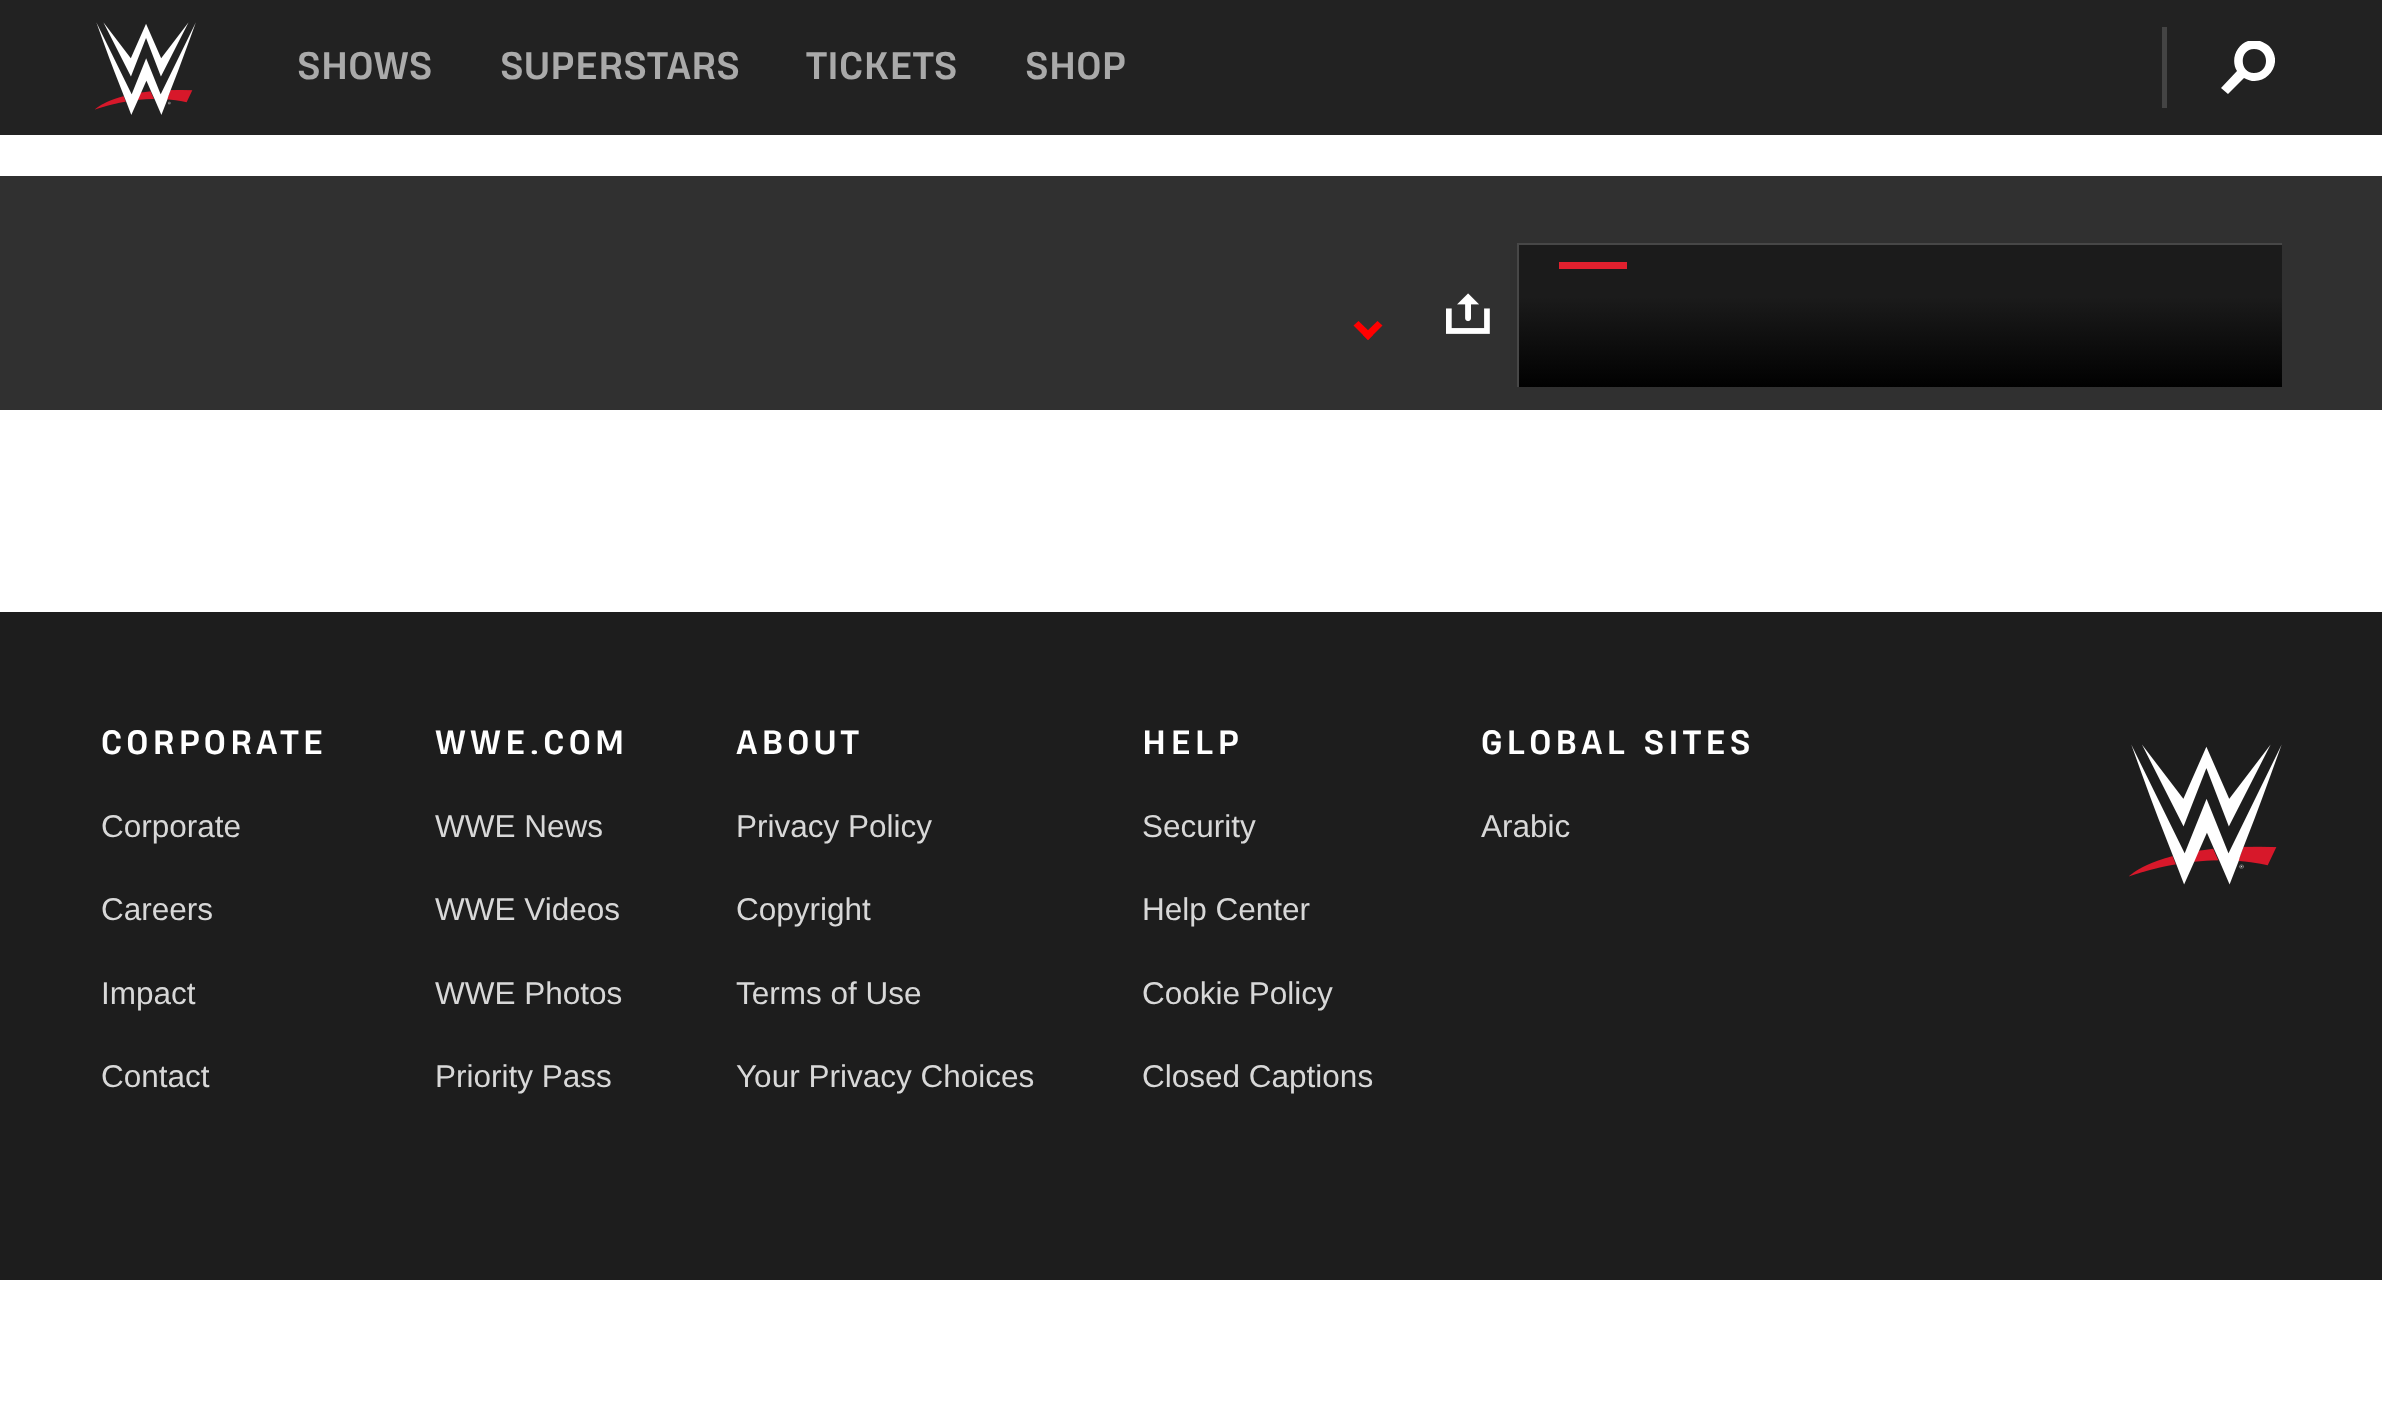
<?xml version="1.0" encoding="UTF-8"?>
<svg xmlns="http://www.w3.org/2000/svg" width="2382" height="1407">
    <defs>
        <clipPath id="clip1"><rect x="2221" y="41" width="54" height="54"/></clipPath>
        <linearGradient id="g1" gradientUnits="userSpaceOnUse" x1="1900" y1="297" x2="1900" y2="387"><stop offset="0" stop-color="#1B1B1B"/><stop offset="1" stop-color="#010101"/></linearGradient>
    </defs>
    <rect width="100%" height="100%" fill="#FFFFFF"/>
    <rect x="0" y="0" width="2382" height="135" fill="#222222"/>
    <image x="95" y="22" width="101" height="93" href="img_01.png"/>
    <text x="297" y="79" font-family="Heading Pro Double" font-size="36" font-weight="700" fill="#AAAAAA">SHOWS</text>
    <text x="500" y="79" font-family="Heading Pro Double" font-size="36" font-weight="700" fill="#AAAAAA">SUPERSTARS</text>
    <text x="806" y="79" font-family="Heading Pro Double" font-size="36" font-weight="700" fill="#AAAAAA">TICKETS</text>
    <text x="1025" y="79" font-family="Heading Pro Double" font-size="36" font-weight="700" fill="#AAAAAA">SHOP</text>
    <rect x="2162" y="27" width="5" height="81" fill="#444444"/>
    <g clip-path="url(#clip1)">
        <path d="M 2254 40 C 2260 40 2265 43 2269 46 C 2286 64 2264 90 2244 78 L 2228 94 L 2221 88 L 2237 71 C 2229 58 2239 40 2254 40 Z M 2254 49 C 2239 49 2239 73 2254 73 C 2270 73 2270 49 2254 49 Z" fill="#FFFFFF" fill-rule="evenodd"/>
    </g>
    <rect x="0" y="176" width="2382" height="234" fill="#303030"/>
    <path d="M 1377.5 321 L 1382.5 325.5 L 1368 340 L 1363 335 Z" fill="#FF0000"/>
    <path d="M 1358.5 321 L 1373 335 L 1368 340 L 1353.5 325.5 Z" fill="#FF0000"/>
    <image x="1446" y="293" width="44" height="41" href="img_02.png"/>
    <rect x="1519" y="245" width="763" height="52" fill="#1B1B1B"/>
    <rect x="1517" y="243" width="2" height="144" fill="#474747"/>
    <rect x="1519" y="243" width="763" height="2" fill="#474747"/>
    <rect x="1559" y="262" width="68" height="7" fill="#E1202E"/>
    <rect x="1519" y="297" width="763" height="90" fill="url(#g1)"/>
    <rect x="0" y="612" width="2382" height="668" fill="#1D1D1D"/>
    <text x="101" y="754" font-family="Heading Pro Double" font-size="31.5" font-weight="700" letter-spacing="4" fill="#FFFFFF">CORPORATE</text>
    <text x="101" y="837" font-family="Liberation Sans" font-size="31.5" fill="#D8D8D8">Corporate</text>
    <text x="101" y="920" font-family="Liberation Sans" font-size="31.5" fill="#D8D8D8">Careers</text>
    <text x="101" y="1004" font-family="Liberation Sans" font-size="31.5" fill="#D8D8D8">Impact</text>
    <text x="101" y="1087" font-family="Liberation Sans" font-size="31.5" fill="#D8D8D8">Contact</text>
    <text x="435" y="754" font-family="Heading Pro Double" font-size="31.5" font-weight="700" letter-spacing="4" fill="#FFFFFF">WWE.COM</text>
    <text x="435" y="837" font-family="Liberation Sans" font-size="31.5" fill="#D8D8D8">WWE News</text>
    <text x="435" y="920" font-family="Liberation Sans" font-size="31.5" fill="#D8D8D8">WWE Videos</text>
    <text x="435" y="1004" font-family="Liberation Sans" font-size="31.5" fill="#D8D8D8">WWE Photos</text>
    <text x="435" y="1087" font-family="Liberation Sans" font-size="31.5" fill="#D8D8D8">Priority Pass</text>
    <text x="736" y="754" font-family="Heading Pro Double" font-size="31.5" font-weight="700" letter-spacing="4" fill="#FFFFFF">ABOUT</text>
    <text x="736" y="837" font-family="Liberation Sans" font-size="31.5" fill="#D8D8D8">Privacy Policy</text>
    <text x="736" y="920" font-family="Liberation Sans" font-size="31.5" fill="#D8D8D8">Copyright</text>
    <text x="736" y="1004" font-family="Liberation Sans" font-size="31.5" fill="#D8D8D8">Terms of Use</text>
    <text x="736" y="1087" font-family="Liberation Sans" font-size="31.5" fill="#D8D8D8">Your Privacy Choices</text>
    <text x="1142" y="754" font-family="Heading Pro Double" font-size="31.5" font-weight="700" letter-spacing="4" fill="#FFFFFF">HELP</text>
    <text x="1142" y="837" font-family="Liberation Sans" font-size="31.5" fill="#D8D8D8">Security</text>
    <text x="1142" y="920" font-family="Liberation Sans" font-size="31.5" fill="#D8D8D8">Help Center</text>
    <text x="1142" y="1004" font-family="Liberation Sans" font-size="31.5" fill="#D8D8D8">Cookie Policy</text>
    <text x="1142" y="1087" font-family="Liberation Sans" font-size="31.5" fill="#D8D8D8">Closed Captions</text>
    <text x="1481" y="754" font-family="Heading Pro Double" font-size="31.5" font-weight="700" letter-spacing="4" fill="#FFFFFF">GLOBAL SITES</text>
    <text x="1481" y="837" font-family="Liberation Sans" font-size="31.5" fill="#D8D8D8">Arabic</text>
    <image x="2129" y="744" width="153" height="141" href="img_03.png"/>
</svg>
